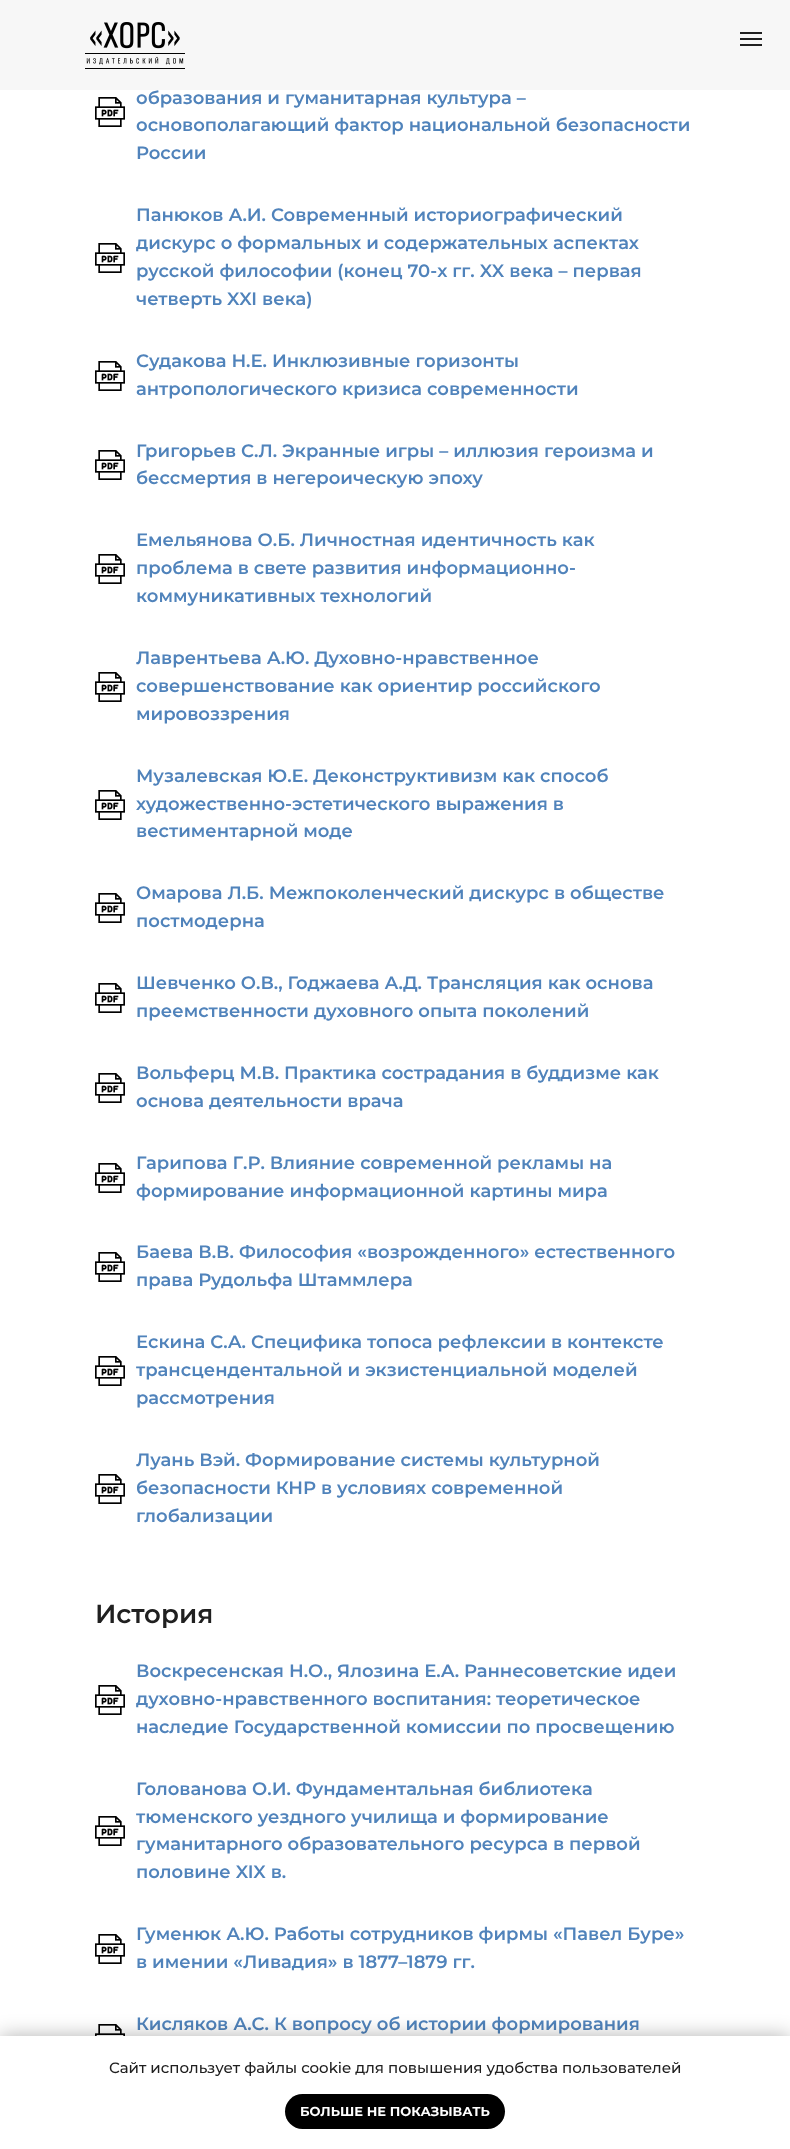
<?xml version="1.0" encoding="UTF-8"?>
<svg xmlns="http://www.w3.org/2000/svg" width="790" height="2149">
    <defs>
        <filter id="blur1" x="-50%" y="-200%" width="200%" height="500%"><feGaussianBlur stdDeviation="10"/></filter>
    </defs>
    <rect width="100%" height="100%" fill="#FFFFFF"/>
    <image x="95" y="97" width="30" height="30" href="img_01.png"/>
    <text font-family="Montserrat" font-size="18" font-weight="600" fill="#5083BB">
        <tspan x="136" y="104">образования и гуманитарная культура –</tspan>
        <tspan x="136" y="131">основополагающий фактор национальной безопасности</tspan>
        <tspan x="136" y="159">России</tspan>
    </text>
    <image x="95" y="243" width="30" height="30" href="img_01.png"/>
    <text font-family="Montserrat" font-size="18" font-weight="600" fill="#5083BB">
        <tspan x="136" y="221">Панюков А.И. Современный историографический</tspan>
        <tspan x="136" y="249">дискурс о формальных и содержательных аспектах</tspan>
        <tspan x="136" y="277">русской философии (конец 70-х гг. XX века – первая</tspan>
        <tspan x="136" y="305">четверть XXI века)</tspan>
    </text>
    <image x="95" y="361" width="30" height="30" href="img_01.png"/>
    <text font-family="Montserrat" font-size="18" font-weight="600" fill="#5083BB">
        <tspan x="136" y="367">Судакова Н.Е. Инклюзивные горизонты</tspan>
        <tspan x="136" y="395">антропологического кризиса современности</tspan>
    </text>
    <image x="95" y="450" width="30" height="30" href="img_01.png"/>
    <text font-family="Montserrat" font-size="18" font-weight="600" fill="#5083BB">
        <tspan x="136" y="457">Григорьев С.Л. Экранные игры – иллюзия героизма и</tspan>
        <tspan x="136" y="484">бессмертия в негероическую эпоху</tspan>
    </text>
    <image x="95" y="554" width="30" height="30" href="img_01.png"/>
    <text font-family="Montserrat" font-size="18" font-weight="600" fill="#5083BB">
        <tspan x="136" y="546">Емельянова О.Б. Личностная идентичность как</tspan>
        <tspan x="136" y="574">проблема в свете развития информационно-</tspan>
        <tspan x="136" y="602">коммуникативных технологий</tspan>
    </text>
    <image x="95" y="672" width="30" height="30" href="img_01.png"/>
    <text font-family="Montserrat" font-size="18" font-weight="600" fill="#5083BB">
        <tspan x="136" y="664">Лаврентьева А.Ю. Духовно-нравственное</tspan>
        <tspan x="136" y="692">совершенствование как ориентир российского</tspan>
        <tspan x="136" y="720">мировоззрения</tspan>
    </text>
    <image x="95" y="790" width="30" height="30" href="img_01.png"/>
    <text font-family="Montserrat" font-size="18" font-weight="600" fill="#5083BB">
        <tspan x="136" y="782">Музалевская Ю.Е. Деконструктивизм как способ</tspan>
        <tspan x="136" y="810">художественно-эстетического выражения в</tspan>
        <tspan x="136" y="837">вестиментарной моде</tspan>
    </text>
    <image x="95" y="893" width="30" height="30" href="img_01.png"/>
    <text font-family="Montserrat" font-size="18" font-weight="600" fill="#5083BB">
        <tspan x="136" y="899">Омарова Л.Б. Межпоколенческий дискурс в обществе</tspan>
        <tspan x="136" y="927">постмодерна</tspan>
    </text>
    <image x="95" y="983" width="30" height="30" href="img_01.png"/>
    <text font-family="Montserrat" font-size="18" font-weight="600" fill="#5083BB">
        <tspan x="136" y="989">Шевченко О.В., Годжаева А.Д. Трансляция как основа</tspan>
        <tspan x="136" y="1017">преемственности духовного опыта поколений</tspan>
    </text>
    <image x="95" y="1073" width="30" height="30" href="img_01.png"/>
    <text font-family="Montserrat" font-size="18" font-weight="600" fill="#5083BB">
        <tspan x="136" y="1079">Вольферц М.В. Практика сострадания в буддизме как</tspan>
        <tspan x="136" y="1107">основа деятельности врача</tspan>
    </text>
    <image x="95" y="1163" width="30" height="30" href="img_01.png"/>
    <text font-family="Montserrat" font-size="18" font-weight="600" fill="#5083BB">
        <tspan x="136" y="1169">Гарипова Г.Р. Влияние современной рекламы на</tspan>
        <tspan x="136" y="1197">формирование информационной картины мира</tspan>
    </text>
    <image x="95" y="1252" width="30" height="30" href="img_01.png"/>
    <text font-family="Montserrat" font-size="18" font-weight="600" fill="#5083BB">
        <tspan x="136" y="1258">Баева В.В. Философия «возрожденного» естественного</tspan>
        <tspan x="136" y="1286">права Рудольфа Штаммлера</tspan>
    </text>
    <image x="95" y="1356" width="30" height="30" href="img_01.png"/>
    <text font-family="Montserrat" font-size="18" font-weight="600" fill="#5083BB">
        <tspan x="136" y="1348">Ескина С.А. Специфика топоса рефлексии в контексте</tspan>
        <tspan x="136" y="1376">трансцендентальной и экзистенциальной моделей</tspan>
        <tspan x="136" y="1404">рассмотрения</tspan>
    </text>
    <image x="95" y="1474" width="30" height="30" href="img_01.png"/>
    <text font-family="Montserrat" font-size="18" font-weight="600" fill="#5083BB">
        <tspan x="136" y="1466">Луань Вэй. Формирование системы культурной</tspan>
        <tspan x="136" y="1494">безопасности КНР в условиях современной</tspan>
        <tspan x="136" y="1522">глобализации</tspan>
    </text>
    <text x="95" y="1623" font-family="Montserrat" font-size="26" font-weight="600" fill="#202020">История</text>
    <image x="95" y="1685" width="30" height="30" href="img_01.png"/>
    <text font-family="Montserrat" font-size="18" font-weight="600" fill="#5083BB">
        <tspan x="136" y="1677">Воскресенская Н.О., Ялозина Е.А. Раннесоветские идеи</tspan>
        <tspan x="136" y="1705">духовно-нравственного воспитания: теоретическое</tspan>
        <tspan x="136" y="1733">наследие Государственной комиссии по просвещению</tspan>
    </text>
    <image x="95" y="1816" width="30" height="30" href="img_01.png"/>
    <text font-family="Montserrat" font-size="18" font-weight="600" fill="#5083BB">
        <tspan x="136" y="1795">Голованова О.И. Фундаментальная библиотека</tspan>
        <tspan x="136" y="1823">тюменского уездного училища и формирование</tspan>
        <tspan x="136" y="1850">гуманитарного образовательного ресурса в первой</tspan>
        <tspan x="136" y="1878">половине XIX в.</tspan>
    </text>
    <image x="95" y="1934" width="30" height="30" href="img_01.png"/>
    <text font-family="Montserrat" font-size="18" font-weight="600" fill="#5083BB">
        <tspan x="136" y="1940">Гуменюк А.Ю. Работы сотрудников фирмы «Павел Буре»</tspan>
        <tspan x="136" y="1968">в имении «Ливадия» в 1877–1879 гг.</tspan>
    </text>
    <image x="95" y="2024" width="30" height="12" href="img_02.png"/>
    <text x="136" y="2030" font-family="Montserrat" font-size="18" font-weight="600" fill="#5083BB">Кисляков А.С. К вопросу об истории формирования</text>
    <rect x="0" y="0" width="790" height="90" fill="#F7F7F7"/>
    <image x="85" y="22" width="100" height="47" href="img_03.png"/>
    <rect x="740" y="32" width="22" height="2" fill="#202020"/>
    <rect x="740" y="38" width="22" height="2" fill="#202020"/>
    <rect x="740" y="44" width="22" height="2" fill="#202020"/>
    <rect x="0" y="2036" width="790" height="113" fill="#000000" fill-opacity="0.3" filter="url(#blur1)"/>
    <rect x="0" y="2036" width="790" height="113" fill="#FFFFFF"/>
    <text x="109" y="2073" font-family="Montserrat" font-size="15" font-weight="500" fill="#202020">Сайт использует файлы cookie для повышения удобства пользователей</text>
    <rect x="285" y="2094" width="220" height="35" rx="17.5" fill="#000000"/>
    <text x="300" y="2116" font-family="Montserrat" font-size="13" font-weight="700" fill="#FFFFFF">БОЛЬШЕ НЕ ПОКАЗЫВАТЬ</text>
</svg>
